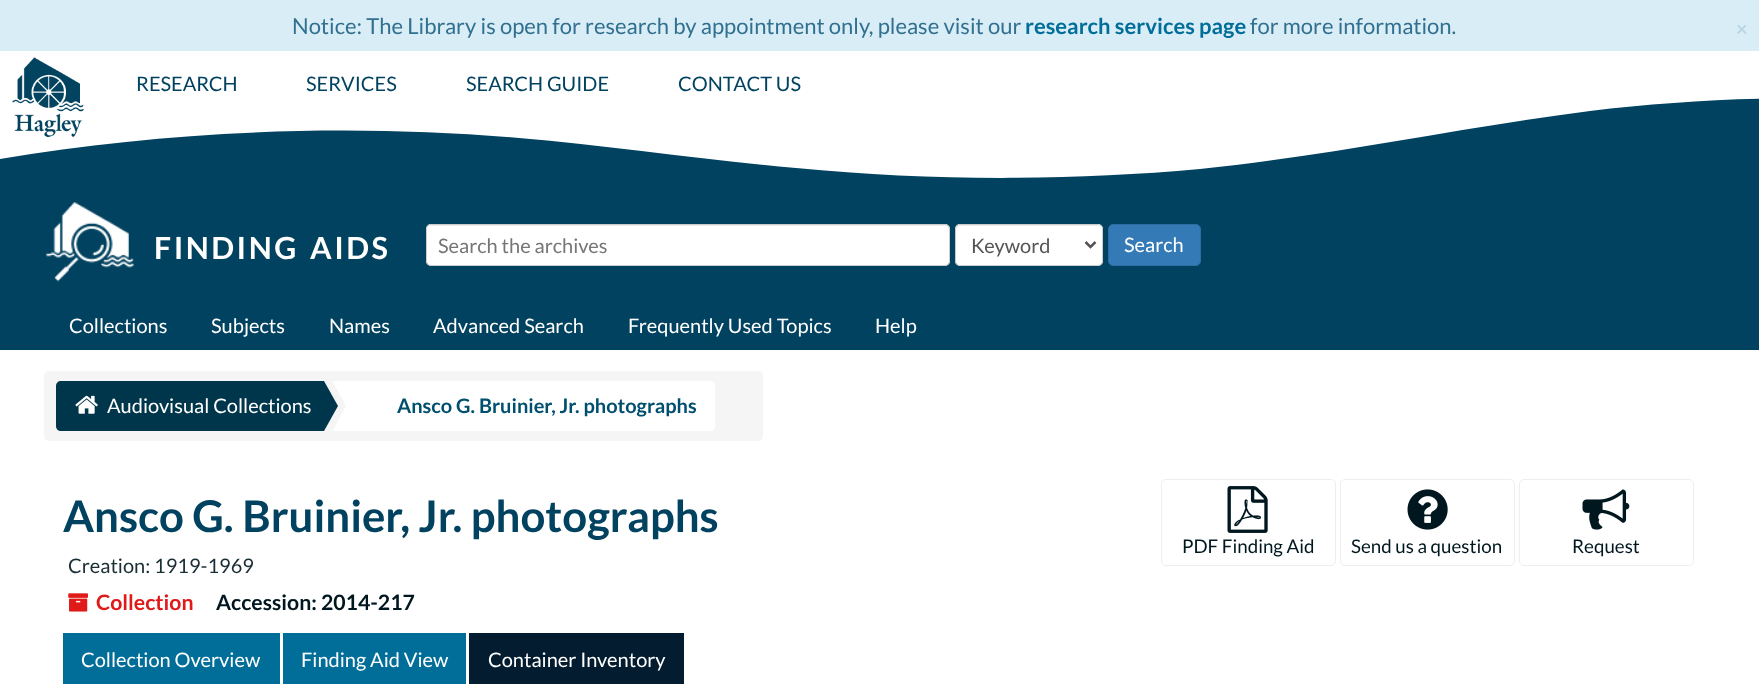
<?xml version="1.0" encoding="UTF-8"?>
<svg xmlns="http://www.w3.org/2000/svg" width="1759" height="687">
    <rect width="100%" height="100%" fill="#FFFFFF"/>
    <rect x="0" y="0" width="1759" height="51" fill="#D9EDF7"/>
    <text x="292" y="34" font-family="Lato" font-size="22" fill="#31708F">Notice: The Library is open for research by appointment only, please visit our</text>
    <text x="1025" y="34" font-family="Lato" font-size="22" font-weight="700" fill="#006E99">research services page</text>
    <text x="1250" y="34" font-family="Lato" font-size="22" fill="#31708F">for more information.</text>
    <text x="1736" y="36" font-family="Lato" font-size="20" font-weight="700" fill="#B7D4E2">×</text>
    <path d="M 519 138 C 612 146 703 160 796 168 C 929 181 1067 181 1200 169 C 1329 156 1463 127 1590 111 C 1703 98 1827 92 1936 109 V 179 H 0 V 159 C 165 131 345 123 519 138 Z" fill="#00425F"/>
    <image x="12" y="57" width="72" height="80" href="img_01.png"/>
    <text x="136" y="91" font-family="Lato" font-size="20" fill="#00425F">RESEARCH</text>
    <text x="306" y="91" font-family="Lato" font-size="20" fill="#00425F">SERVICES</text>
    <text x="466" y="91" font-family="Lato" font-size="20" fill="#00425F">SEARCH GUIDE</text>
    <text x="678" y="91" font-family="Lato" font-size="20" fill="#00425F">CONTACT US</text>
    <rect x="0" y="179" width="1759" height="171" fill="#00425F"/>
    <image x="46" y="202" width="88" height="80" href="img_02.png"/>
    <text x="154" y="259" font-family="Lato" font-size="30.5" font-weight="700" letter-spacing="2.5" fill="#FFFFFF">FINDING</text>
    <text x="310" y="259" font-family="Lato" font-size="30.5" font-weight="700" letter-spacing="2.5" fill="#FFFFFF">AIDS</text>
    <rect x="426" y="224" width="524" height="42" rx="5" fill="#FFFFFF"/>
    <path d="M 431 226 H 945 C 947 226 949 228 949 230 V 229 C 949 227 947 225 945 225 H 432 C 430 225 428 227 428 229 V 230 C 428 228 429 226 431 226 Z" fill="#ECECEC"/>
    <rect x="426.5" y="224.5" width="523" height="41" rx="4.5" fill="none" stroke="#CCCCCC"/>
    <text x="438" y="253" font-family="Lato" font-size="20" fill="#767676">Search the archives</text>
    <rect x="955" y="224" width="148" height="42" rx="5" fill="#FFFFFF"/>
    <path d="M 960 226 H 1098 C 1100 226 1101 228 1101 230 V 229 C 1101 227 1099 225 1097 225 H 960 C 958 225 956 227 956 229 V 230 C 956 228 958 226 960 226 Z" fill="#ECECEC"/>
    <rect x="955.5" y="224.5" width="147" height="41" rx="4.5" fill="none" stroke="#CCCCCC"/>
    <path d="M 1085.5 242 L 1090.5 247 L 1095.5 242" fill="none" stroke="#555555" stroke-width="2.5"/>
    <text x="971" y="253" font-family="Lato" font-size="20" fill="#555555">Keyword</text>
    <rect x="1108.5" y="224.5" width="92" height="41" rx="4.5" fill="#337AB7" stroke="#2E6DA4"/>
    <text x="1124" y="252" font-family="Lato" font-size="20" fill="#FFFFFF">Search</text>
    <text x="69" y="333" font-family="Lato" font-size="20" fill="#FFFFFF">Collections</text>
    <text x="211" y="333" font-family="Lato" font-size="20" fill="#FFFFFF">Subjects</text>
    <text x="329" y="333" font-family="Lato" font-size="20" fill="#FFFFFF">Names</text>
    <text x="433" y="333" font-family="Lato" font-size="20" fill="#FFFFFF">Advanced Search</text>
    <text x="628" y="333" font-family="Lato" font-size="20" fill="#FFFFFF">Frequently Used Topics</text>
    <text x="875" y="333" font-family="Lato" font-size="20" fill="#FFFFFF">Help</text>
    <rect x="44" y="371" width="719" height="70" rx="5" fill="#F5F5F5"/>
    <path d="M 61 381 H 324 V 431 H 61 C 58 431 56 429 56 426 V 386 C 56 383 58 381 61 381 Z" fill="#00364C"/>
    <image x="75" y="395" width="23" height="19" href="img_03.png"/>
    <text x="107" y="413" font-family="Lato" font-size="20" fill="#FFFFFF">Audiovisual Collections</text>
    <path d="M 324 431 V 381 L 338 406 Z" fill="#00364C"/>
    <path d="M 358 381 H 710 C 713 381 715 383 715 386 V 426 C 715 429 713 431 710 431 H 358 Z" fill="#FFFFFF"/>
    <path d="M 332.5 381 H 360 L 346 406 Z" fill="#FFFFFF"/>
    <rect x="346" y="385" width="12" height="46" fill="#FFFFFF"/>
    <path d="M 360 431 H 332.5 L 346 406 Z" fill="#FFFFFF"/>
    <text x="397" y="413" font-family="Lato" font-size="20" font-weight="700" fill="#004F6F">Ansco G. Bruinier, Jr. photographs</text>
    <text x="63" y="532" font-family="Lato" font-size="43.75" font-weight="700" fill="#00425F">Ansco G. Bruinier, Jr. photographs</text>
    <text x="68" y="573" font-family="Lato" font-size="20" fill="#1A2E35">Creation: 1919-1969</text>
    <image x="68" y="593" width="20" height="19" href="img_04.png"/>
    <text x="96" y="610" font-family="Lato" font-size="21.25" font-weight="700" fill="#E01919">Collection</text>
    <text x="216" y="610" font-family="Lato" font-size="21.25" font-weight="700" fill="#00171F">Accession: 2014-217</text>
    <rect x="1161.5" y="479.5" width="174" height="86" rx="4.5" fill="none" stroke="#EEEEEE"/>
    <image x="1227" y="486" width="41" height="47" href="img_05.png"/>
    <text x="1182" y="553" font-family="Lato" font-size="18.75" fill="#00171F">PDF Finding Aid</text>
    <rect x="1340.5" y="479.5" width="174" height="86" rx="4.5" fill="none" stroke="#EEEEEE"/>
    <image x="1407" y="489" width="41" height="41" href="img_06.png"/>
    <text x="1351" y="553" font-family="Lato" font-size="18.75" fill="#00171F">Send us a question</text>
    <rect x="1519.5" y="479.5" width="174" height="86" rx="4.5" fill="none" stroke="#EEEEEE"/>
    <image x="1582" y="489" width="48" height="41" href="img_07.png"/>
    <text x="1572" y="553" font-family="Lato" font-size="18.75" fill="#00171F">Request</text>
    <rect x="63" y="633" width="217" height="51" fill="#006E99"/>
    <text x="81" y="667" font-family="Lato" font-size="20" fill="#FFFFFF">Collection Overview</text>
    <rect x="283" y="633" width="183" height="51" fill="#006E99"/>
    <text x="301" y="667" font-family="Lato" font-size="20" fill="#FFFFFF">Finding Aid View</text>
    <rect x="469" y="633" width="215" height="51" fill="#041C2F"/>
    <text x="488" y="667" font-family="Lato" font-size="20" fill="#FFFFFF">Container Inventory</text>
</svg>
